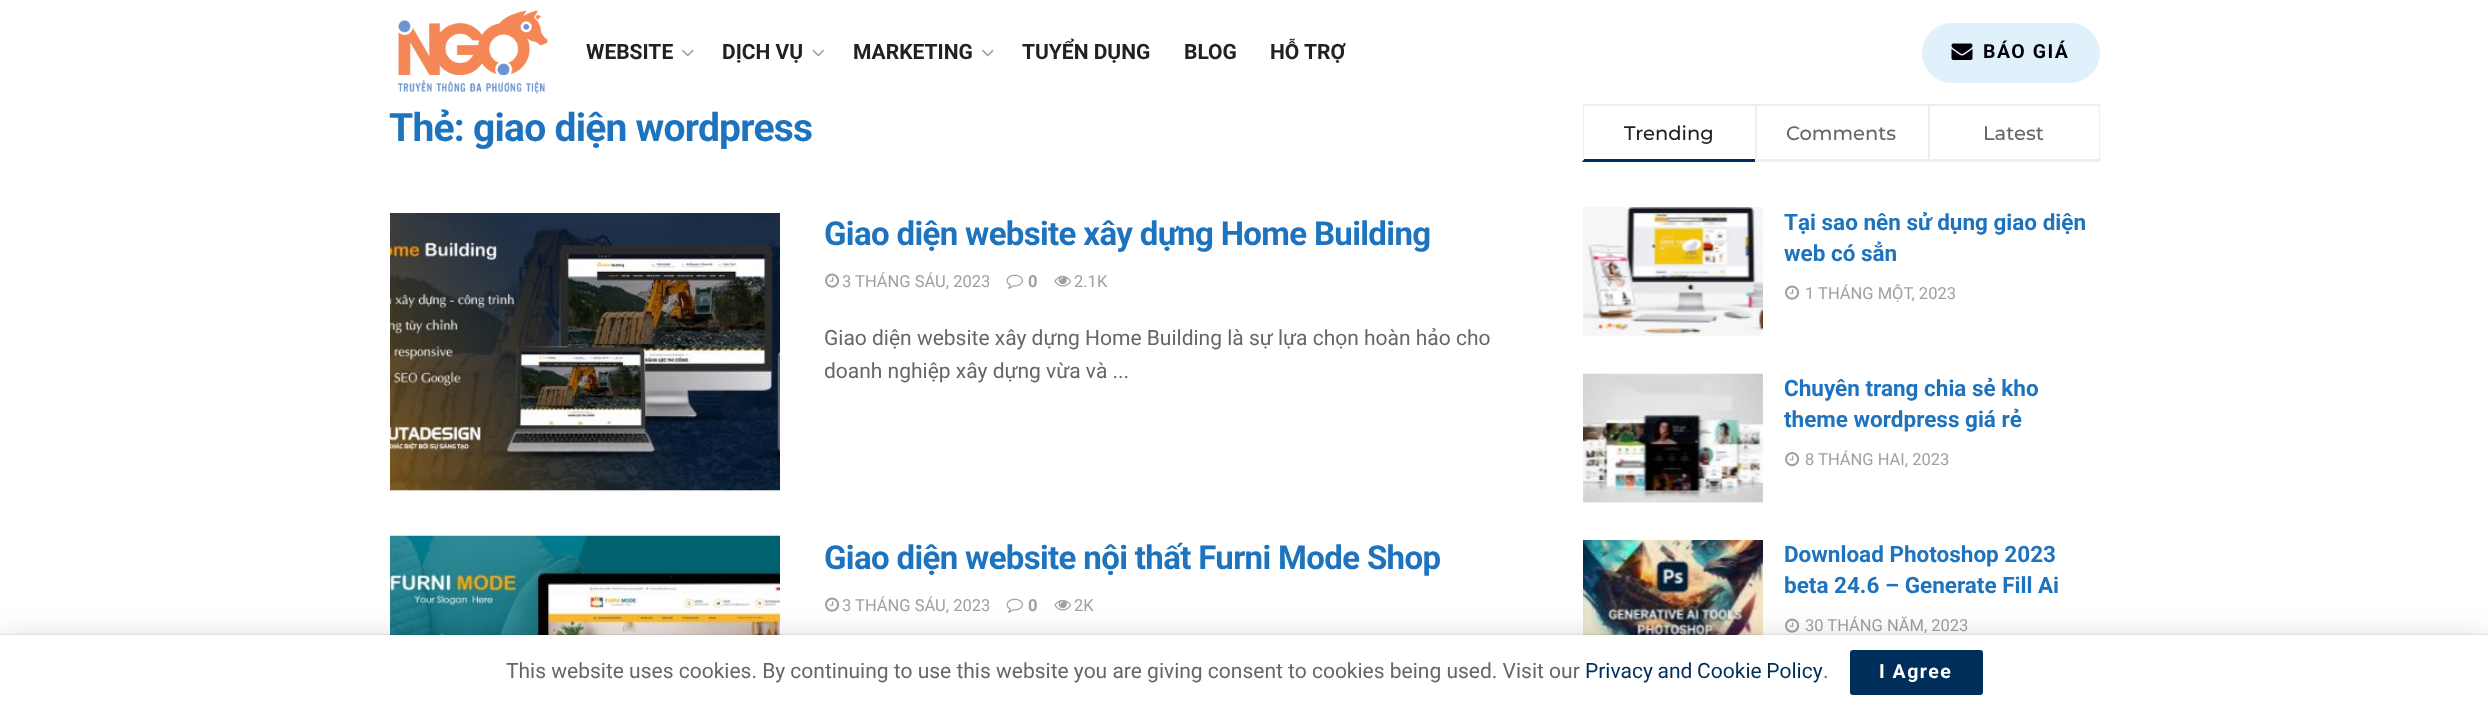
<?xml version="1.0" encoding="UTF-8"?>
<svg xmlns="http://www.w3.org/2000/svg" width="2488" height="709">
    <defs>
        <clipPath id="clip1"><rect x="1583" y="104" width="517" height="58"/></clipPath>
        <filter id="blur1" x="-50%" y="-200%" width="200%" height="500%"><feGaussianBlur stdDeviation="15"/></filter>
        <filter id="blur2" x="-50%" y="-200%" width="200%" height="500%"><feGaussianBlur stdDeviation="1"/></filter>
    </defs>
    <rect width="100%" height="100%" fill="#FFFFFF"/>
    <image x="397" y="10" width="151" height="84" href="img_01.png"/>
    <text x="586" y="59" font-family="Roboto" font-size="21" font-weight="700" fill="#212121">WEBSITE</text>
    <image x="682" y="49" width="12" height="8" href="img_02.png"/>
    <text x="722" y="59" font-family="Roboto" font-size="21" font-weight="700" fill="#212121">DỊCH VỤ</text>
    <image x="812" y="49" width="12" height="8" href="img_03.png"/>
    <text x="853" y="59" font-family="Roboto" font-size="21" font-weight="700" fill="#212121">MARKETING</text>
    <image x="982" y="49" width="12" height="8" href="img_02.png"/>
    <text x="1022" y="59" font-family="Roboto" font-size="21" font-weight="700" fill="#212121">TUYỂN DỤNG</text>
    <text x="1184" y="59" font-family="Roboto" font-size="21" font-weight="700" fill="#212121">BLOG</text>
    <text x="1270" y="59" font-family="Roboto" font-size="21" font-weight="700" fill="#212121">HỖ TRỢ</text>
    <rect x="1922" y="23" width="178" height="60" rx="30" fill="#E1F1FB"/>
    <image x="1951" y="43" width="22" height="17" href="img_04.png"/>
    <text x="1983" y="58" font-family="Roboto" font-size="19.5" font-weight="700" letter-spacing="1.5" fill="#02010A">BÁO GIÁ</text>
    <text x="389" y="141" font-family="Roboto" font-size="39" font-weight="700" letter-spacing="-0.75" fill="#1E73BE">Thẻ: giao diện wordpress</text>
    <rect x="390" y="490" width="390" height="1" fill="#F7F7F7"/>
    <image x="390" y="213" width="390" height="278" href="img_05.png"/>
    <text x="824" y="245" font-family="Roboto" font-size="33" font-weight="700" letter-spacing="-0.65" fill="#1E73BE">Giao diện website xây dựng Home Building</text>
    <image x="825" y="273" width="15" height="15" href="img_06.png"/>
    <text x="842" y="287" font-family="Roboto" font-size="16.5" fill="#A0A0A0">3 THÁNG SÁU, 2023</text>
    <image x="1006" y="274" width="17" height="15" href="img_07.png"/>
    <text x="1028" y="287" font-family="Roboto" font-size="16.5" font-weight="700" fill="#A0A0A0">0</text>
    <image x="1054" y="275" width="17" height="12" href="img_08.png"/>
    <text x="1074" y="287" font-family="Roboto" font-size="16.5" fill="#A0A0A0">2.1K</text>
    <text font-family="Roboto" font-size="21" fill="#666666">
        <tspan x="824" y="345">Giao diện website xây dựng Home Building là sự lựa chọn hoàn hảo cho</tspan>
        <tspan x="824" y="378">doanh nghiệp xây dựng vừa và ...</tspan>
    </text>
    <image x="390" y="535" width="390" height="100" href="img_09.png"/>
    <text x="824" y="569" font-family="Roboto" font-size="33" font-weight="700" letter-spacing="-0.65" fill="#1E73BE">Giao diện website nội thất Furni Mode Shop</text>
    <image x="825" y="597" width="15" height="15" href="img_06.png"/>
    <text x="842" y="611" font-family="Roboto" font-size="16.5" fill="#A0A0A0">3 THÁNG SÁU, 2023</text>
    <image x="1006" y="598" width="17" height="15" href="img_07.png"/>
    <text x="1028" y="611" font-family="Roboto" font-size="16.5" font-weight="700" fill="#A0A0A0">0</text>
    <image x="1054" y="599" width="17" height="12" href="img_08.png"/>
    <text x="1074" y="611" font-family="Roboto" font-size="16.5" fill="#A0A0A0">2K</text>
    <rect x="1583" y="104" width="517" height="2" fill="#EEEEEE"/>
    <path d="M 1755 162 H 1582 L 1584 159 H 1755 Z" fill="#002E5B"/>
    <g clip-path="url(#clip1)">
        <path d="M 1582 162 V 104 L 1584 105 V 159 Z" fill="#EEEEEE"/>
    </g>
    <text x="1624" y="140" font-family="Montserrat" font-size="19.5" font-weight="100" fill="#212121">Trending</text>
    <rect x="1755" y="159" width="173" height="3" fill="#EEEEEE"/>
    <rect x="1755" y="104" width="2" height="58" fill="#EEEEEE"/>
    <text x="1786" y="140" font-family="Montserrat" font-size="19.5" font-weight="100" fill="#666666">Comments</text>
    <rect x="2099" y="104" width="1" height="58" fill="#EEEEEE"/>
    <rect x="1928" y="159" width="172" height="3" fill="#EEEEEE"/>
    <rect x="1928" y="104" width="2" height="58" fill="#EEEEEE"/>
    <text x="1983" y="140" font-family="Montserrat" font-size="19.5" font-weight="100" fill="#666666">Latest</text>
    <rect x="1583" y="334" width="180" height="2" fill="#F7F7F7"/>
    <image x="1583" y="207" width="180" height="127" href="img_10.png"/>
    <text font-family="Roboto" font-size="22.5" font-weight="700" fill="#1E73BE">
        <tspan x="1784" y="230">Tại sao nên sử dụng giao diện</tspan>
        <tspan x="1784" y="261">web có sẳn</tspan>
    </text>
    <image x="1785" y="285" width="15" height="15" href="img_06.png"/>
    <text x="1805" y="299" font-family="Roboto" font-size="16.5" fill="#A0A0A0">1 THÁNG MỘT, 2023</text>
    <rect x="1583" y="502" width="180" height="1" fill="#F7F7F7"/>
    <image x="1583" y="373" width="180" height="130" href="img_11.png"/>
    <text font-family="Roboto" font-size="22.5" font-weight="700" fill="#1E73BE">
        <tspan x="1784" y="396">Chuyên trang chia sẻ kho</tspan>
        <tspan x="1784" y="427">theme wordpress giá rẻ</tspan>
    </text>
    <image x="1785" y="452" width="15" height="15" href="img_12.png"/>
    <text x="1805" y="465" font-family="Roboto" font-size="16.5" fill="#A0A0A0">8 THÁNG HAI, 2023</text>
    <image x="1583" y="540" width="180" height="95" href="img_13.png"/>
    <text font-family="Roboto" font-size="22.5" font-weight="700" fill="#1E73BE">
        <tspan x="1784" y="562">Download Photoshop 2023</tspan>
        <tspan x="1784" y="593">beta 24.6 – Generate Fill Ai</tspan>
    </text>
    <image x="1785" y="618" width="15" height="15" href="img_06.png"/>
    <text x="1805" y="631" font-family="Roboto" font-size="16.5" fill="#A0A0A0">30 THÁNG NĂM, 2023</text>
    <rect x="0" y="638" width="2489" height="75" fill="#000000" fill-opacity="0.15" filter="url(#blur1)"/>
    <rect x="0" y="635" width="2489" height="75" fill="#000000" fill-opacity="0.2" filter="url(#blur2)"/>
    <rect x="0" y="635" width="2488" height="74" fill="#FFFFFF"/>
    <text x="506" y="678" font-family="Roboto" font-size="21" fill="#666666">This website uses cookies. By continuing to use this website you are giving consent to cookies being used. Visit our</text>
    <text x="1585" y="678" word-spacing="-0.5" font-family="Roboto" font-size="21" fill="#002E5B">Privacy and Cookie Policy</text>
    <text x="1823" y="678" font-family="Roboto" font-size="21" fill="#666666">.</text>
    <rect x="1850" y="650" width="133" height="45" rx="3" fill="#002E5B"/>
    <text x="1879" y="678" font-family="Roboto" font-size="19.5" font-weight="700" letter-spacing="1.5" fill="#FFFFFF">I Agree</text>
</svg>
